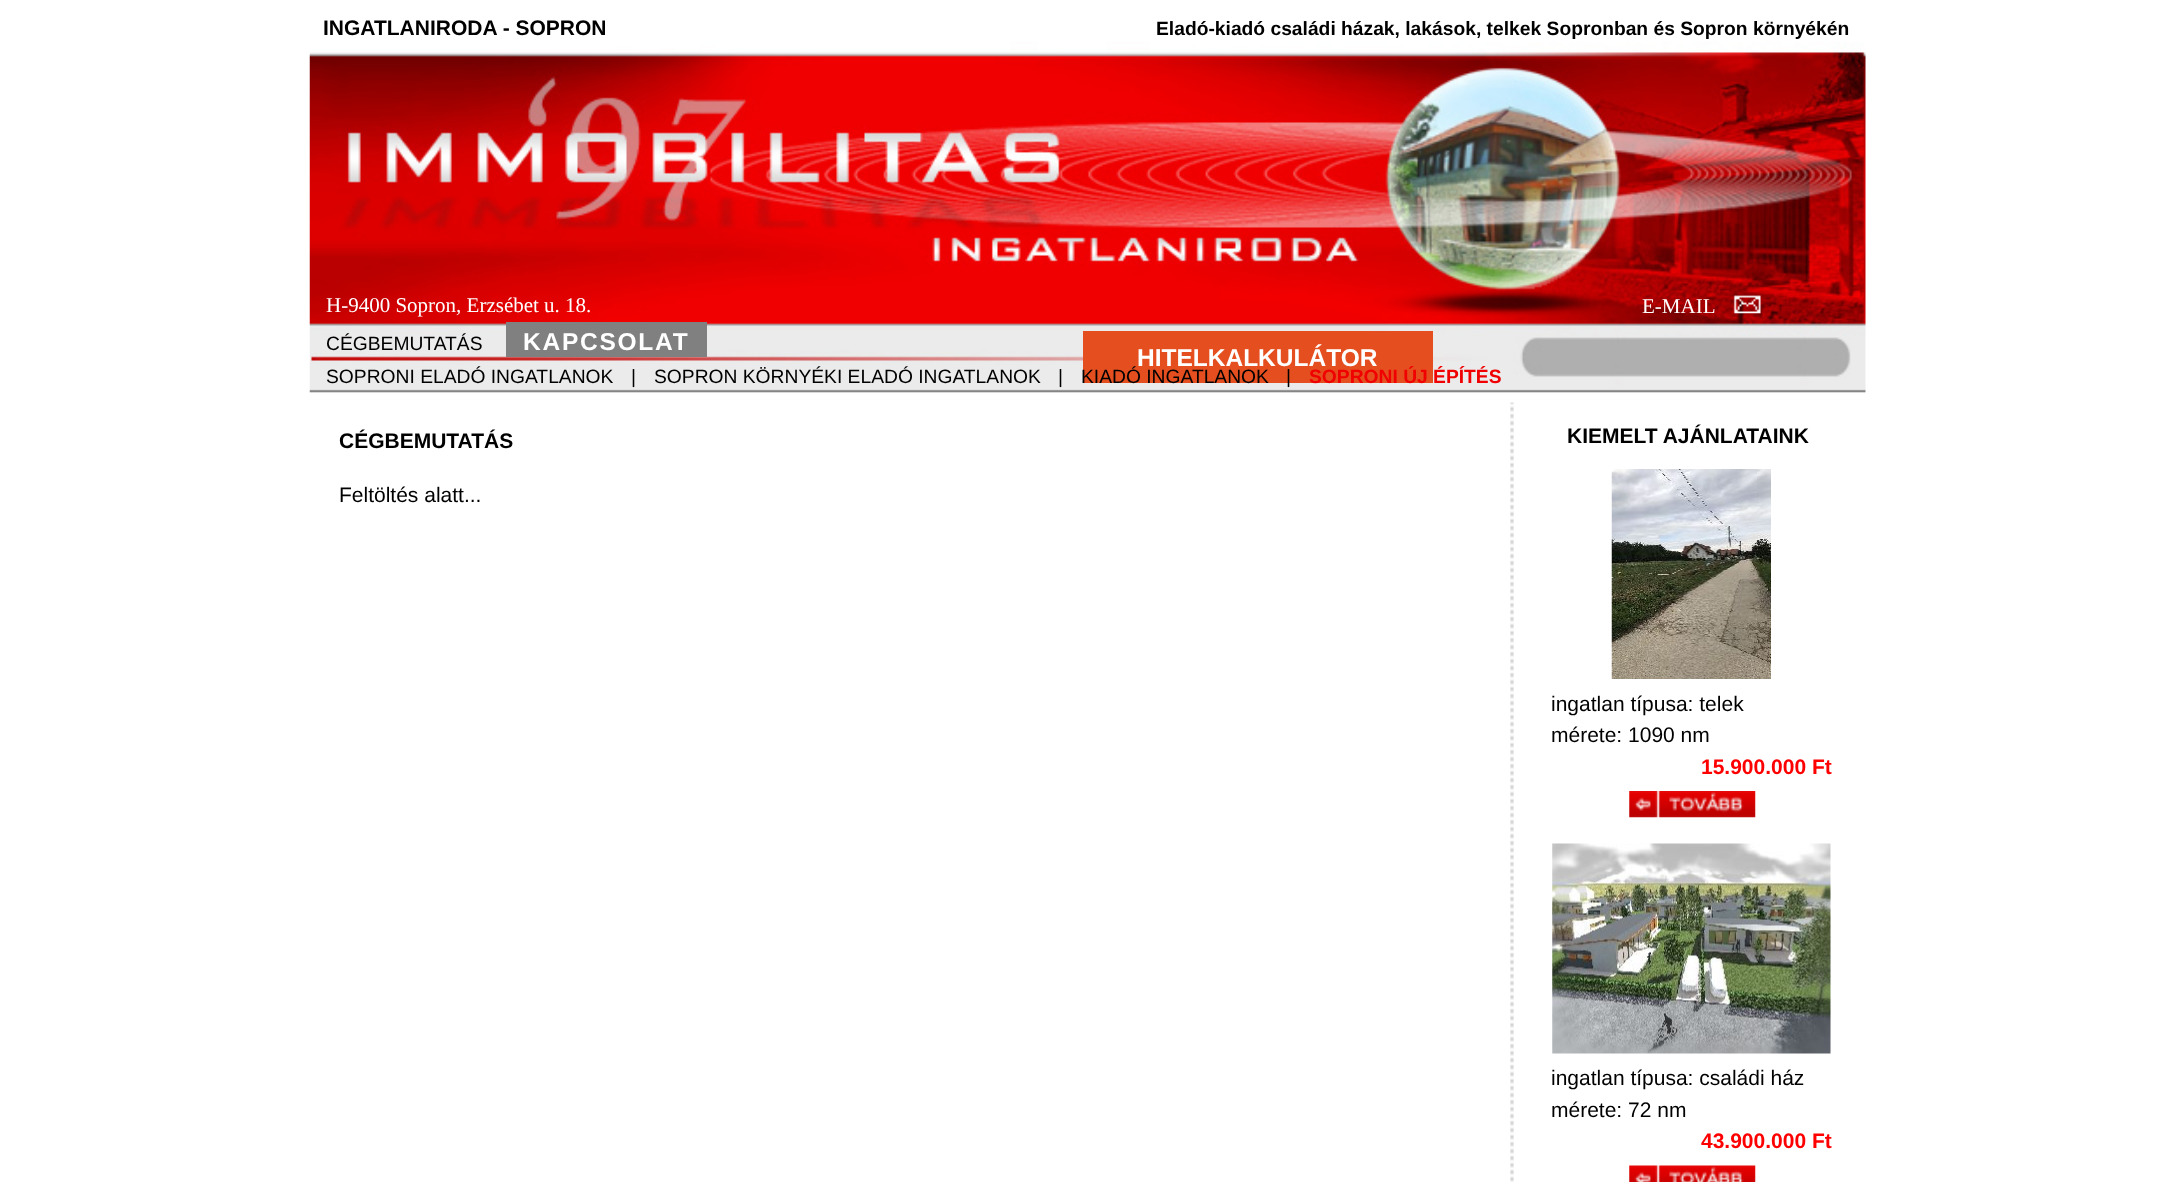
<?xml version="1.0" encoding="UTF-8"?>
<svg xmlns="http://www.w3.org/2000/svg" width="2173" height="1182">
    <rect width="100%" height="100%" fill="#FFFFFF"/>
    <image x="1510" y="402" width="4" height="780" href="img_01.png"/>
    <image x="309" y="0" width="1557" height="403" href="img_02.png"/>
    <text x="323" y="35" font-family="Liberation Sans" font-size="21" font-weight="700" fill="#000000">INGATLANIRODA - SOPRON</text>
    <text x="1156" y="35" font-family="Liberation Sans" font-size="19.25" font-weight="700" fill="#000000">Eladó-kiadó családi házak, lakások, telkek Sopronban és Sopron környékén</text>
    <text x="326" y="312" font-family="Liberation Serif" font-size="21" fill="#FFFFFF">H-9400 Sopron, Erzsébet u. 18.</text>
    <text x="1642" y="313" font-family="Liberation Serif" font-size="21" fill="#FFFFFF">E-MAIL</text>
    <image x="1733" y="295" width="28" height="19" href="img_03.png"/>
    <text x="326" y="350" font-family="Liberation Sans" font-size="19.25" fill="#000000">CÉGBEMUTATÁS</text>
    <rect x="506" y="322" width="201" height="35" fill="#808080"/>
    <text x="523" y="350" font-family="Liberation Sans" font-size="24.5" font-weight="700" letter-spacing="1.75" fill="#FFFFFF">KAPCSOLAT</text>
    <rect x="1083" y="331" width="350" height="52" fill="#E54F1F"/>
    <text x="1137" y="366" font-family="Liberation Sans" font-size="24.5" font-weight="700" fill="#FFFFFF">HITELKALKULÁTOR</text>
    <text x="326" y="383" font-family="Liberation Sans" font-size="19.25" fill="#000000">SOPRONI ELADÓ INGATLANOK</text>
    <text x="631" y="383" font-family="Liberation Sans" font-size="19.25" fill="#000000">|</text>
    <text x="654" y="383" font-family="Liberation Sans" font-size="19.25" fill="#000000">SOPRON KÖRNYÉKI ELADÓ INGATLANOK</text>
    <text x="1058" y="383" font-family="Liberation Sans" font-size="19.25" fill="#000000">|</text>
    <text x="1081" y="383" font-family="Liberation Sans" font-size="19.25" fill="#000000">KIADÓ INGATLANOK</text>
    <text x="1286" y="383" font-family="Liberation Sans" font-size="19.25" fill="#000000">|</text>
    <text x="1309" y="383" font-family="Liberation Sans" font-size="19.25" font-weight="700" fill="#F00000">SOPRONI ÚJ ÉPÍTÉS</text>
    <text x="339" y="448" font-family="Liberation Sans" font-size="21" font-weight="700" fill="#000000">CÉGBEMUTATÁS</text>
    <text x="339" y="502" font-family="Liberation Sans" font-size="21" fill="#000000">Feltöltés alatt...</text>
    <text x="1567" y="443" font-family="Liberation Sans" font-size="21" font-weight="700" fill="#000000">KIEMELT AJÁNLATAINK</text>
    <image x="1611" y="469" width="160" height="210" href="img_04.png"/>
    <text font-family="Liberation Sans" font-size="21" fill="#000000">
        <tspan x="1551" y="711">ingatlan típusa: telek</tspan>
        <tspan x="1551" y="742">mérete: 1090 nm</tspan>
    </text>
    <text x="1701" y="774" font-family="Liberation Sans" font-size="21" font-weight="700" fill="#FF0000">15.900.000 Ft</text>
    <image x="1629" y="791" width="127" height="27" href="img_05.png"/>
    <image x="1552" y="843" width="279" height="211" href="img_06.png"/>
    <text font-family="Liberation Sans" font-size="21" fill="#000000">
        <tspan x="1551" y="1085">ingatlan típusa: családi ház</tspan>
        <tspan x="1551" y="1117">mérete: 72 nm</tspan>
    </text>
    <text x="1701" y="1148" font-family="Liberation Sans" font-size="21" font-weight="700" fill="#FF0000">43.900.000 Ft</text>
    <image x="1629" y="1165" width="127" height="17" href="img_07.png"/>
</svg>
